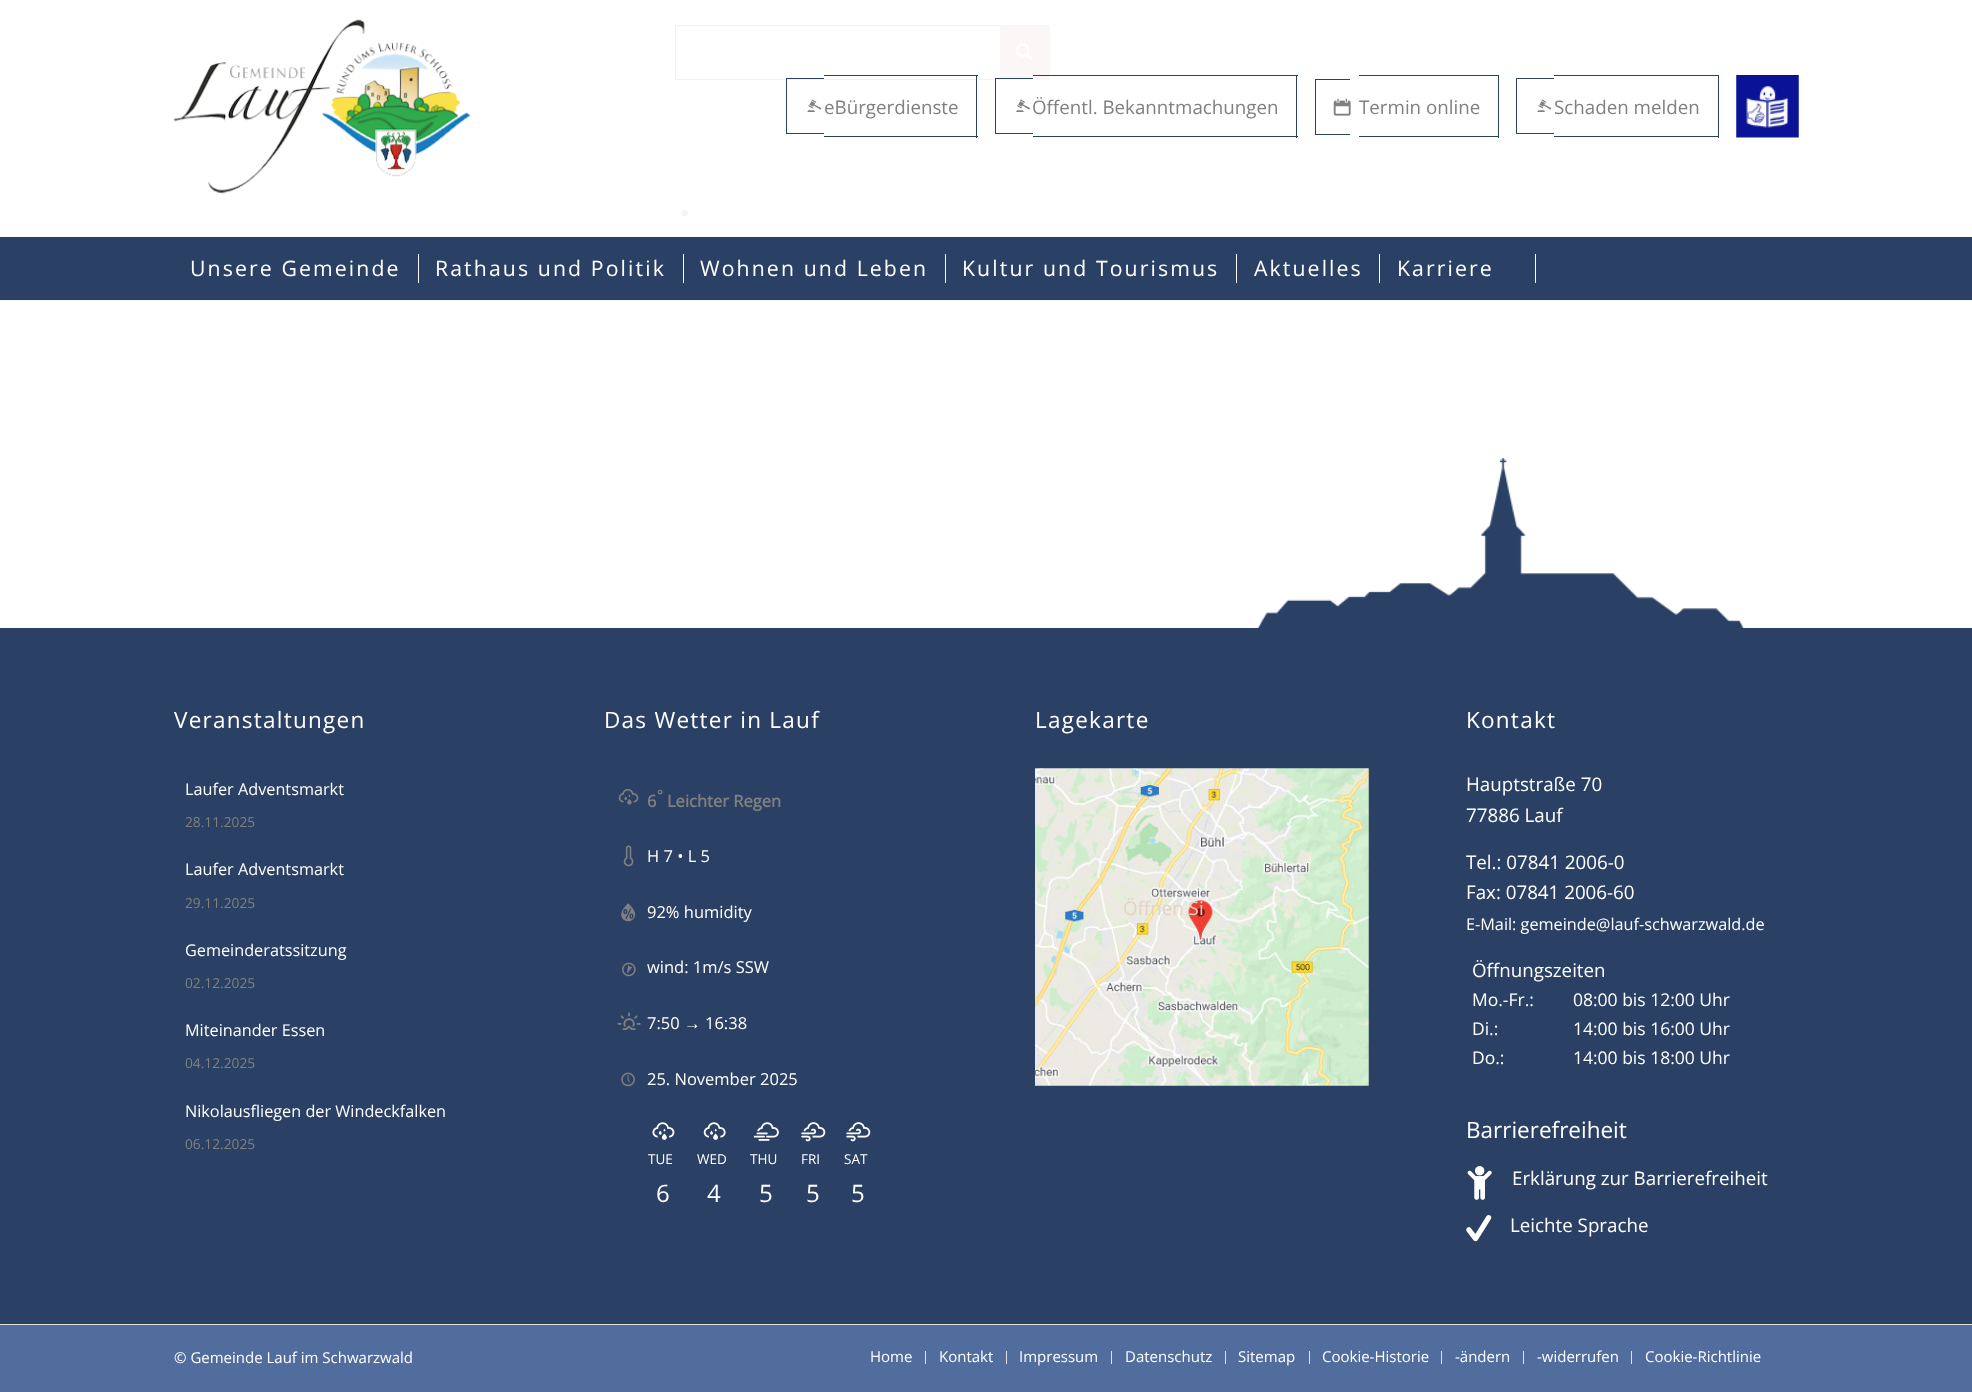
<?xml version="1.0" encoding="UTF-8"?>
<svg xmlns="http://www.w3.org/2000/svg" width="1972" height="1392">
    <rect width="100%" height="100%" fill="#FFFFFF"/>
    <rect x="0" y="300" width="1972" height="1" fill="#F8F8F8"/>
    <image x="173" y="19" width="297" height="175" href="img_01.png"/>
    <image x="807" y="99" width="15" height="13" href="img_02.png"/>
    <text x="824" y="114" font-family="Open Sans" font-size="18.75" fill="#808080">eBürgerdienste</text>
    <rect x="675.5" y="25.5" width="374" height="54" fill="none" stroke="#F2F2F2"/>
    <rect x="786" y="78" width="38" height="1" fill="#2A4064"/>
    <rect x="786" y="133" width="38" height="1" fill="#2A4064"/>
    <rect x="786" y="78" width="1" height="56" fill="#2A4064"/>
    <rect x="824" y="75" width="154" height="1" fill="#2A4064"/>
    <rect x="976" y="75" width="1" height="63" fill="#2A4064"/>
    <rect x="824" y="136" width="154" height="1" fill="#2A4064"/>
    <image x="1016" y="99" width="14" height="13" href="img_03.png"/>
    <text x="1032" y="114" font-family="Open Sans" font-size="18.75" fill="#808080">Öffentl. Bekanntmachungen</text>
    <rect x="1000" y="25" width="50" height="55" fill="#FCF7F7"/>
    <rect x="995" y="78" width="38" height="1" fill="#2A4064"/>
    <rect x="995" y="133" width="38" height="1" fill="#2A4064"/>
    <rect x="995" y="78" width="1" height="56" fill="#2A4064"/>
    <rect x="1033" y="75" width="265" height="1" fill="#2A4064"/>
    <rect x="1296" y="75" width="1" height="63" fill="#2A4064"/>
    <rect x="1033" y="136" width="265" height="1" fill="#2A4064"/>
    <image x="1333" y="98" width="18" height="18" href="img_04.png"/>
    <text x="1359" y="114" font-family="Open Sans" font-size="18.75" fill="#808080">Termin online</text>
    <rect x="1315" y="79" width="35" height="1" fill="#2A4064"/>
    <rect x="1315" y="134" width="35" height="1" fill="#2A4064"/>
    <rect x="1315" y="79" width="1" height="56" fill="#2A4064"/>
    <rect x="1359" y="75" width="140" height="1" fill="#2A4064"/>
    <rect x="1498" y="75" width="1" height="63" fill="#2A4064"/>
    <rect x="1359" y="136" width="140" height="1" fill="#2A4064"/>
    <image x="1537" y="99" width="15" height="13" href="img_02.png"/>
    <text x="1554" y="114" font-family="Open Sans" font-size="18.75" fill="#808080">Schaden melden</text>
    <rect x="1516" y="78" width="38" height="1" fill="#2A4064"/>
    <rect x="1516" y="133" width="38" height="1" fill="#2A4064"/>
    <rect x="1516" y="78" width="1" height="56" fill="#2A4064"/>
    <rect x="1554" y="75" width="165" height="1" fill="#2A4064"/>
    <rect x="1718" y="75" width="1" height="63" fill="#2A4064"/>
    <rect x="1554" y="136" width="165" height="1" fill="#2A4064"/>
    <image x="1736" y="75" width="63" height="63" href="img_05.png"/>
    <rect x="0" y="237" width="1972" height="63" fill="#2A4064"/>
    <rect x="0" y="236" width="1972" height="1" fill="#F8F8F8"/>
    <text x="190" y="276" font-family="Open Sans" font-size="21.25" letter-spacing="2.1" fill="#FFFFFF">Unsere Gemeinde</text>
    <text x="435" y="276" font-family="Open Sans" font-size="21.25" letter-spacing="2.1" fill="#FFFFFF">Rathaus und Politik</text>
    <rect x="418" y="254" width="1" height="29" fill="#F8F8F8"/>
    <text x="700" y="276" font-family="Open Sans" font-size="21.25" letter-spacing="2.1" fill="#FFFFFF">Wohnen und Leben</text>
    <rect x="683" y="254" width="1" height="29" fill="#F8F8F8"/>
    <text x="962" y="276" font-family="Open Sans" font-size="21.25" letter-spacing="2.1" fill="#FFFFFF">Kultur und Tourismus</text>
    <rect x="945" y="254" width="1" height="29" fill="#F8F8F8"/>
    <text x="1254" y="276" font-family="Open Sans" font-size="21.25" letter-spacing="2.1" fill="#FFFFFF">Aktuelles</text>
    <rect x="1236" y="254" width="1" height="29" fill="#F8F8F8"/>
    <text x="1397" y="276" font-family="Open Sans" font-size="21.25" letter-spacing="2.1" fill="#FFFFFF">Karriere</text>
    <rect x="1379" y="254" width="1" height="29" fill="#F8F8F8"/>
    <rect x="1535" y="254" width="1" height="29" fill="#F8F8F8"/>
    <image x="1016" y="43" width="17" height="18" href="img_06.png"/>
    <rect x="681" y="210" width="7" height="6" rx="3" fill="#F6F6F6"/>
    <image x="1257" y="458" width="487" height="170" href="img_07.png"/>
    <rect x="0" y="628" width="1972" height="696" fill="#2A4064"/>
    <text x="174" y="728" font-family="Open Sans" font-size="22.5" letter-spacing="1.25" fill="#FFFFFF">Veranstaltungen</text>
    <text x="185" y="795" font-family="Open Sans" font-size="16.25" fill="#FFFFFF">Laufer Adventsmarkt</text>
    <text x="185" y="827" font-family="Open Sans" font-size="13.75" fill="#808080">28.11.2025</text>
    <text x="185" y="875" font-family="Open Sans" font-size="16.25" fill="#FFFFFF">Laufer Adventsmarkt</text>
    <text x="185" y="908" font-family="Open Sans" font-size="13.75" fill="#808080">29.11.2025</text>
    <text x="185" y="956" font-family="Open Sans" font-size="16.25" fill="#FFFFFF">Gemeinderatssitzung</text>
    <text x="185" y="988" font-family="Open Sans" font-size="13.75" fill="#808080">02.12.2025</text>
    <text x="185" y="1036" font-family="Open Sans" font-size="16.25" fill="#FFFFFF">Miteinander Essen</text>
    <text x="185" y="1068" font-family="Open Sans" font-size="13.75" fill="#808080">04.12.2025</text>
    <text x="185" y="1117" font-family="Open Sans" font-size="16.25" fill="#FFFFFF">Nikolausfliegen der Windeckfalken</text>
    <text x="185" y="1149" font-family="Open Sans" font-size="13.75" fill="#808080">06.12.2025</text>
    <text x="604" y="728" font-family="Open Sans" font-size="22.5" letter-spacing="1.25" fill="#FFFFFF">Das Wetter in Lauf</text>
    <image x="618" y="788" width="21" height="17" href="img_08.png"/>
    <text x="657" y="800" font-family="Open Sans" font-size="13.75" font-weight="700" fill="#808080">°</text>
    <text x="647" y="807" font-family="Open Sans" font-size="16.5" font-weight="700" fill="#808080">6</text>
    <text x="667" y="807" font-family="Open Sans" font-size="16.5" font-weight="700" fill="#808080">Leichter Regen</text>
    <image x="623" y="845" width="11" height="22" href="img_09.png"/>
    <text x="647" y="862" font-family="Open Sans" font-size="16.5" fill="#FFFFFF">H 7 • L 5</text>
    <image x="621" y="903" width="15" height="19" href="img_10.png"/>
    <text x="647" y="918" font-family="Open Sans" font-size="16.5" fill="#FFFFFF">92% humidity</text>
    <image x="622" y="962" width="14" height="15" href="img_11.png"/>
    <text x="647" y="973" font-family="Open Sans" font-size="16.5" fill="#FFFFFF">wind: 1m/s SSW</text>
    <image x="617" y="1012" width="24" height="18" href="img_12.png"/>
    <text x="647" y="1029" font-family="Open Sans" font-size="16.5" fill="#FFFFFF">7:50</text>
    <text x="684" y="1029" font-family="Liberation Sans" font-size="16.5" fill="#FFFFFF">→</text>
    <text x="705" y="1029" font-family="Open Sans" font-size="16.5" fill="#FFFFFF">16:38</text>
    <image x="621" y="1072" width="14" height="15" href="img_13.png"/>
    <text x="647" y="1085" font-family="Open Sans" font-size="16.5" fill="#FFFFFF">25. November 2025</text>
    <image x="652" y="1122" width="23" height="18" href="img_14.png"/>
    <text x="648" y="1164" font-family="Open Sans" font-size="13.5" fill="#FFFFFF">TUE</text>
    <text x="656" y="1202" font-family="Open Sans" font-size="24" fill="#FFFFFF">6</text>
    <image x="703" y="1122" width="23" height="18" href="img_15.png"/>
    <text x="697" y="1164" font-family="Open Sans" font-size="13.5" fill="#FFFFFF">WED</text>
    <text x="707" y="1202" font-family="Open Sans" font-size="24" fill="#FFFFFF">4</text>
    <image x="753" y="1122" width="26" height="19" href="img_16.png"/>
    <text x="750" y="1164" font-family="Open Sans" font-size="13.5" fill="#FFFFFF">THU</text>
    <text x="759" y="1202" font-family="Open Sans" font-size="24" fill="#FFFFFF">5</text>
    <image x="801" y="1122" width="25" height="20" href="img_17.png"/>
    <text x="801" y="1164" font-family="Open Sans" font-size="13.5" fill="#FFFFFF">FRI</text>
    <text x="806" y="1202" font-family="Open Sans" font-size="24" fill="#FFFFFF">5</text>
    <image x="846" y="1122" width="25" height="20" href="img_17.png"/>
    <text x="844" y="1164" font-family="Open Sans" font-size="13.5" fill="#FFFFFF">SAT</text>
    <text x="851" y="1202" font-family="Open Sans" font-size="24" fill="#FFFFFF">5</text>
    <text x="1035" y="728" font-family="Open Sans" font-size="22.5" letter-spacing="1.25" fill="#FFFFFF">Lagekarte</text>
    <image x="1035" y="768" width="334" height="318" href="img_18.png"/>
    <text x="1123" y="915" font-family="Open Sans" font-size="18.75" fill="#E4D3C3">Öffnen Si</text>
    <text x="1466" y="728" font-family="Open Sans" font-size="22.5" letter-spacing="1.25" fill="#FFFFFF">Kontakt</text>
    <text font-family="Open Sans" font-size="18.75" fill="#FFFFFF">
        <tspan x="1466" y="791">Hauptstraße 70</tspan>
        <tspan x="1466" y="822">77886 Lauf</tspan>
    </text>
    <text font-family="Open Sans" font-size="18.75" fill="#FFFFFF">
        <tspan x="1466" y="869">Tel.: 07841 2006-0</tspan>
        <tspan x="1466" y="899">Fax: 07841 2006-60</tspan>
    </text>
    <text x="1466" y="930" font-family="Open Sans" font-size="16.25" fill="#FFFFFF">E-Mail: gemeinde@lauf-schwarzwald.de</text>
    <text x="1472" y="977" font-family="Open Sans" font-size="18.75" fill="#FFFFFF">Öffnungszeiten</text>
    <text x="1472" y="1006" font-family="Open Sans" font-size="17.5" fill="#FFFFFF">Mo.-Fr.:</text>
    <text x="1573" y="1006" font-family="Open Sans" font-size="17.5" fill="#FFFFFF">08:00 bis 12:00 Uhr</text>
    <text x="1472" y="1035" font-family="Open Sans" font-size="17.5" fill="#FFFFFF">Di.:</text>
    <text x="1573" y="1035" font-family="Open Sans" font-size="17.5" fill="#FFFFFF">14:00 bis 16:00 Uhr</text>
    <text x="1472" y="1064" font-family="Open Sans" font-size="17.5" fill="#FFFFFF">Do.:</text>
    <text x="1573" y="1064" font-family="Open Sans" font-size="17.5" fill="#FFFFFF">14:00 bis 18:00 Uhr</text>
    <text x="1466" y="1138" font-family="Open Sans" font-size="22.5" fill="#FFFFFF">Barrierefreiheit</text>
    <image x="1467" y="1166" width="25" height="34" href="img_19.png"/>
    <text x="1512" y="1185" font-family="Open Sans" font-size="18.75" fill="#FFFFFF">Erklärung zur Barrierefreiheit</text>
    <image x="1466" y="1215" width="26" height="27" href="img_20.png"/>
    <text x="1510" y="1232" font-family="Open Sans" font-size="18.75" fill="#FFFFFF">Leichte Sprache</text>
    <rect x="0" y="1325" width="1972" height="67" fill="#516D9E"/>
    <rect x="0" y="1324" width="1972" height="1" fill="#E1E1E1"/>
    <text x="174" y="1363" font-family="Open Sans" font-size="15" fill="#FFFFFF">© Gemeinde Lauf im Schwarzwald</text>
    <text x="870" y="1362" font-family="Open Sans" font-size="15" fill="#FFFFFF">Home</text>
    <rect x="925" y="1351" width="1" height="13" fill="#E1E1E1"/>
    <text x="939" y="1362" font-family="Open Sans" font-size="15" fill="#FFFFFF">Kontakt</text>
    <rect x="1006" y="1351" width="1" height="13" fill="#E1E1E1"/>
    <text x="1019" y="1362" font-family="Open Sans" font-size="15" fill="#FFFFFF">Impressum</text>
    <rect x="1111" y="1351" width="1" height="13" fill="#E1E1E1"/>
    <text x="1125" y="1362" font-family="Open Sans" font-size="15" fill="#FFFFFF">Datenschutz</text>
    <rect x="1225" y="1351" width="1" height="13" fill="#E1E1E1"/>
    <text x="1238" y="1362" font-family="Open Sans" font-size="15" fill="#FFFFFF">Sitemap</text>
    <rect x="1309" y="1351" width="1" height="13" fill="#E1E1E1"/>
    <text x="1322" y="1362" font-family="Open Sans" font-size="15" fill="#FFFFFF">Cookie-Historie</text>
    <rect x="1441" y="1351" width="1" height="13" fill="#E1E1E1"/>
    <text x="1455" y="1362" font-family="Open Sans" font-size="15" fill="#FFFFFF">-ändern</text>
    <rect x="1523" y="1351" width="1" height="13" fill="#E1E1E1"/>
    <text x="1537" y="1362" font-family="Open Sans" font-size="15" fill="#FFFFFF">-widerrufen</text>
    <rect x="1631" y="1351" width="1" height="13" fill="#E1E1E1"/>
    <text x="1645" y="1362" font-family="Open Sans" font-size="15" fill="#FFFFFF">Cookie-Richtlinie</text>
</svg>
